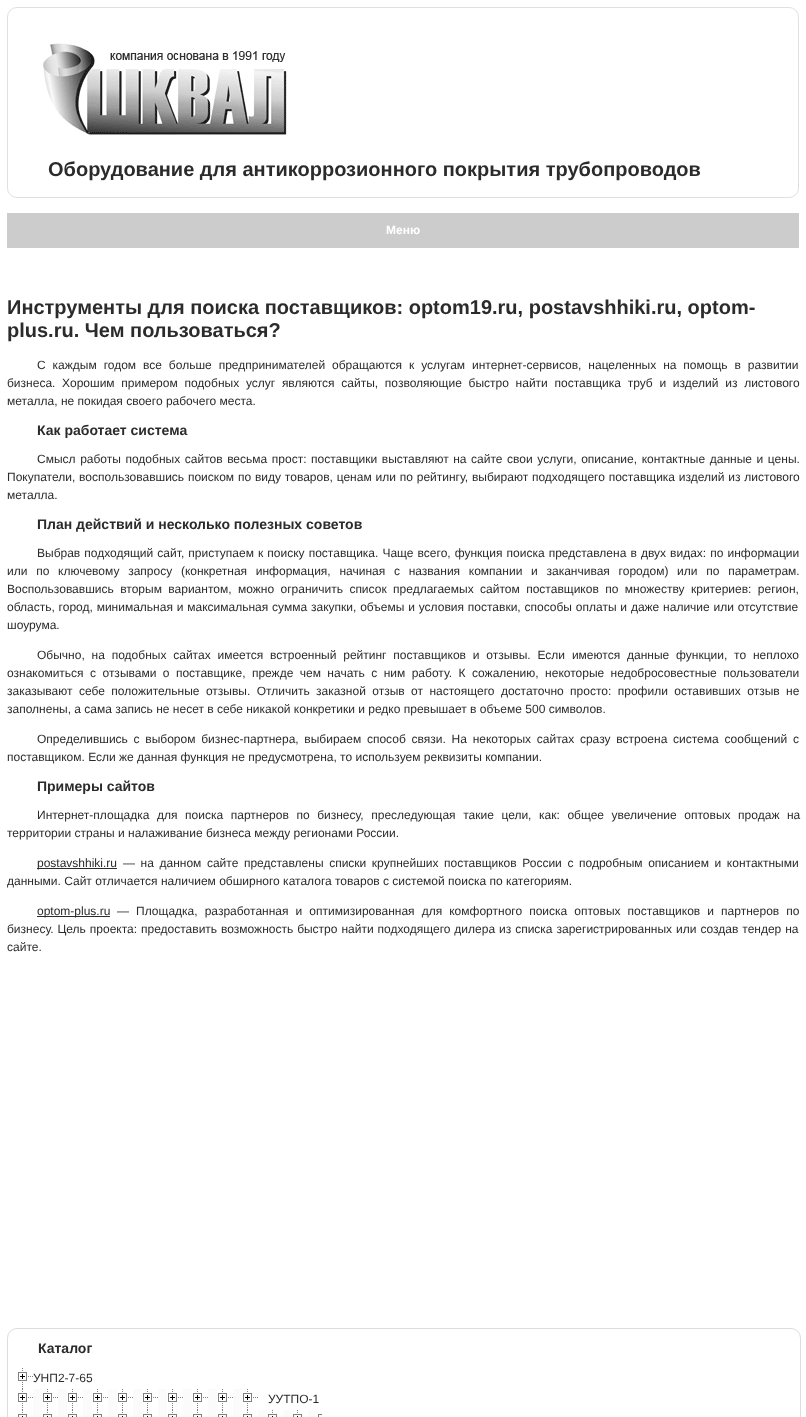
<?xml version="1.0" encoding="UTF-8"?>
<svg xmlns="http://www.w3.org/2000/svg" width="806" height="1417">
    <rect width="100%" height="100%" fill="#FFFFFF"/>
    <rect x="7.5" y="7.5" width="791" height="190" rx="9.5" fill="none" stroke="#E0E0E0"/>
    <image x="43" y="43" width="244" height="92" href="img_01.png"/>
    <text x="48" y="176" font-family="Liberation Sans" font-size="20" font-weight="700" fill="#2B2B2B">Оборудование для антикоррозионного покрытия трубопроводов</text>
    <rect x="7" y="213" width="792" height="35" fill="#CCCCCC"/>
    <text x="386" y="234" font-family="Liberation Sans" font-size="12" font-weight="700" fill="#FFFFFF">Меню</text>
    <text font-family="Liberation Sans" font-size="20" font-weight="700" fill="#2B2B2B">
        <tspan x="7" y="314">Инструменты для поиска поставщиков: optom19.ru, postavshhiki.ru, optom-</tspan>
        <tspan x="7" y="337">plus.ru. Чем пользоваться?</tspan>
    </text>
    <text x="37" y="369" word-spacing="3.6" font-family="Liberation Sans" font-size="12" fill="#2B2B2B">С каждым годом все больше предпринимателей обращаются к услугам интернет-сервисов, нацеленных на помощь в развитии</text>
    <text font-family="Liberation Sans" font-size="12" fill="#2B2B2B">
        <tspan x="7" y="387" word-spacing="3.4">бизнеса. Хорошим примером подобных услуг являются сайты, позволяющие быстро найти поставщика труб и изделий из листового</tspan>
        <tspan x="7" y="405">металла, не покидая своего рабочего места.</tspan>
    </text>
    <text x="37" y="435" font-family="Liberation Sans" font-size="14" font-weight="700" fill="#2B2B2B">Как работает система</text>
    <text x="37" y="463" word-spacing="1.25" font-family="Liberation Sans" font-size="12" fill="#2B2B2B">Смысл работы подобных сайтов весьма прост: поставщики выставляют на сайте свои услуги, описание, контактные данные и цены.</text>
    <text font-family="Liberation Sans" font-size="12" fill="#2B2B2B">
        <tspan x="7" y="481" word-spacing="0.5">Покупатели, воспользовавшись поиском по виду товаров, ценам или по рейтингу, выбирают подходящего поставщика изделий из листового</tspan>
        <tspan x="7" y="499">металла.</tspan>
    </text>
    <text x="37" y="529" font-family="Liberation Sans" font-size="14" font-weight="700" fill="#2B2B2B">План действий и несколько полезных советов</text>
    <text x="37" y="557" word-spacing="0.75" font-family="Liberation Sans" font-size="12" fill="#2B2B2B">Выбрав подходящий сайт, приступаем к поиску поставщика. Чаще всего, функция поиска представлена в двух видах: по информации</text>
    <text font-family="Liberation Sans" font-size="12" fill="#2B2B2B">
        <tspan x="7" y="575" word-spacing="5.4">или по ключевому запросу (конкретная информация, начиная с названия компании и заканчивая городом) или по параметрам.</tspan>
        <tspan x="7" y="593" word-spacing="3.1">Воспользовавшись вторым вариантом, можно ограничить список предлагаемых сайтом поставщиков по множеству критериев: регион,</tspan>
        <tspan x="7" y="611" word-spacing="0.5">область, город, минимальная и максимальная сумма закупки, объемы и условия поставки, способы оплаты и даже наличие или отсутствие</tspan>
        <tspan x="7" y="629">шоурума.</tspan>
    </text>
    <text x="37" y="659" word-spacing="3.5" font-family="Liberation Sans" font-size="12" fill="#2B2B2B">Обычно, на подобных сайтах имеется встроенный рейтинг поставщиков и отзывы. Если имеются данные функции, то неплохо</text>
    <text font-family="Liberation Sans" font-size="12" fill="#2B2B2B">
        <tspan x="7" y="677" word-spacing="3.1">ознакомиться с отзывами о поставщике, прежде чем начать с ним работу. К сожалению, некоторые недобросовестные пользователи</tspan>
        <tspan x="7" y="695" word-spacing="3.1">заказывают себе положительные отзывы. Отличить заказной отзыв от настоящего достаточно просто: профили оставивших отзыв не</tspan>
        <tspan x="7" y="713">заполнены, а сама запись не несет в себе никакой конкретики и редко превышает в объеме 500 символов.</tspan>
    </text>
    <text x="37" y="743" word-spacing="2.4" font-family="Liberation Sans" font-size="12" fill="#2B2B2B">Определившись с выбором бизнес-партнера, выбираем способ связи. На некоторых сайтах сразу встроена система сообщений с</text>
    <text x="7" y="761" font-family="Liberation Sans" font-size="12" fill="#2B2B2B">поставщиком. Если же данная функция не предусмотрена, то используем реквизиты компании.</text>
    <text x="37" y="791" font-family="Liberation Sans" font-size="14" font-weight="700" fill="#2B2B2B">Примеры сайтов</text>
    <text x="37" y="819" word-spacing="4.25" font-family="Liberation Sans" font-size="12" fill="#2B2B2B">Интернет-площадка для поиска партнеров по бизнесу, преследующая такие цели, как: общее увеличение оптовых продаж на</text>
    <text x="7" y="837" font-family="Liberation Sans" font-size="12" fill="#2B2B2B">территории страны и налаживание бизнеса между регионами России.</text>
    <rect x="37" y="868" width="80" height="1" fill="#2B2B2B"/>
    <text x="37" y="867" font-family="Liberation Sans" font-size="12" fill="#2B2B2B">postavshhiki.ru</text>
    <text x="123" y="867" word-spacing="2.25" font-family="Liberation Sans" font-size="12" fill="#2B2B2B">— на данном сайте представлены списки крупнейших поставщиков России с подробным описанием и контактными</text>
    <text x="7" y="885" font-family="Liberation Sans" font-size="12" fill="#2B2B2B">данными. Сайт отличается наличием обширного каталога товаров с системой поиска по категориям.</text>
    <rect x="37" y="916" width="73" height="1" fill="#2B2B2B"/>
    <text x="37" y="915" font-family="Liberation Sans" font-size="12" fill="#2B2B2B">optom-plus.ru</text>
    <text x="117" y="915" word-spacing="3.75" font-family="Liberation Sans" font-size="12" fill="#2B2B2B">— Площадка, разработанная и оптимизированная для комфортного поиска оптовых поставщиков и партнеров по</text>
    <text font-family="Liberation Sans" font-size="12" fill="#2B2B2B">
        <tspan x="7" y="933" word-spacing="0.6">бизнесу. Цель проекта: предоставить возможность быстро найти подходящего дилера из списка зарегистрированных или создав тендер на</tspan>
        <tspan x="7" y="951">сайте.</tspan>
    </text>
    <rect x="7.5" y="1328.5" width="793" height="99" rx="9.5" fill="none" stroke="#DDDDDD"/>
    <text x="38" y="1353" font-family="Liberation Sans" font-size="14" font-weight="700" fill="#2B2B2B">Каталог</text>
    <image x="18" y="1368" width="15" height="21" href="img_02.png"/>
    <text x="33" y="1382" font-family="Liberation Sans" font-size="12" fill="#2B2B2B">УНП2-7-65</text>
    <image x="18" y="1389" width="240" height="21" href="img_03.png"/>
    <text x="268" y="1403" font-family="Liberation Sans" font-size="12" fill="#2B2B2B">УУТПО-1</text>
    <image x="18" y="1410" width="304" height="7" href="img_04.png"/>
</svg>
